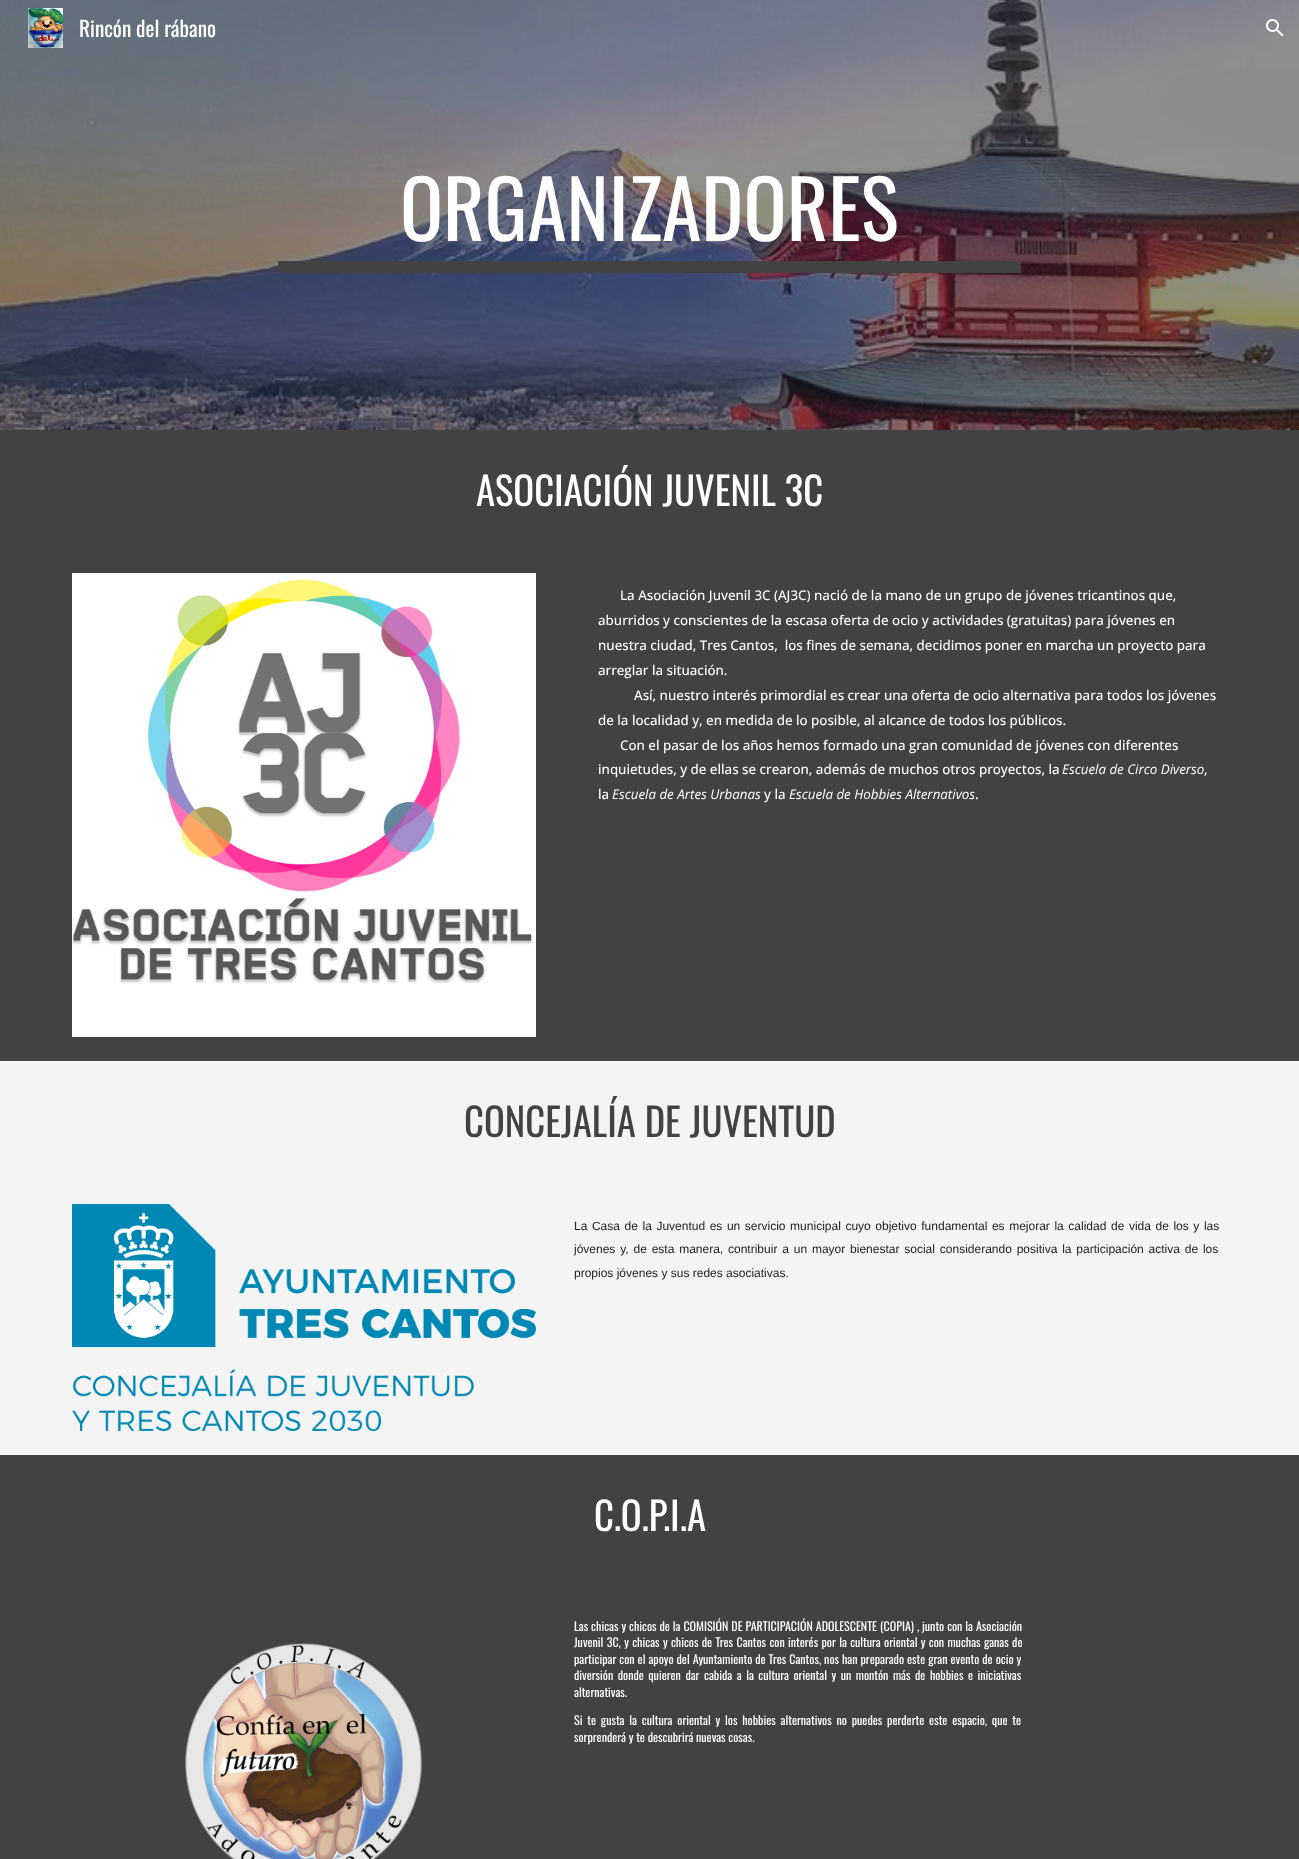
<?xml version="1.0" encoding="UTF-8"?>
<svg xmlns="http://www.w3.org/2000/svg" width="1299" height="1859">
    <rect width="100%" height="100%" fill="#FFFFFF"/>
    <image x="0" y="0" width="1299" height="430" href="img_03.png"/>
    <image x="28" y="8" width="35" height="40" href="img_01.png"/>
    <text x="79" y="37" font-family="Oswald" font-size="21.25" fill="#FFFFFF">Rincón del rábano</text>
    <image x="1266" y="19" width="18" height="18" href="img_02.png"/>
    <text x="400" y="241" font-family="Oswald" font-size="80" fill="#FFFFFF">ORGANIZADORES</text>
    <rect x="278" y="261" width="743" height="12" fill="#424242"/>
    <rect x="0" y="430" width="1299" height="631" fill="#424242"/>
    <text x="476" y="506" font-family="Oswald" font-size="38.75" fill="#FFFFFF">ASOCIACIÓN JUVENIL 3C</text>
    <image x="72" y="573" width="464" height="464" href="img_04.png"/>
    <text x="620" y="600" font-family="Open Sans" font-size="13.35" font-weight="500" fill="#FFFFFF">La Asociación Juvenil 3C (AJ3C) nació de la mano de un grupo de jóvenes tricantinos que,</text>
    <text font-family="Open Sans" font-size="13.35" font-weight="500" fill="#FFFFFF" xml:space="preserve"><tspan x="598" y="625">aburridos y conscientes de la escasa oferta de ocio y actividades (gratuitas) para jóvenes en</tspan><tspan x="598" y="650">nuestra ciudad, Tres Cantos,  los fines de semana, decidimos poner en marcha un proyecto para</tspan><tspan x="598" y="675">arreglar la situación.</tspan></text>
    <text x="634" y="700" font-family="Open Sans" font-size="13.35" font-weight="500" fill="#FFFFFF">Así, nuestro interés primordial es crear una oferta de ocio alternativa para todos los jóvenes</text>
    <text x="598" y="725" font-family="Open Sans" font-size="13.35" font-weight="500" fill="#FFFFFF">de la localidad y, en medida de lo posible, al alcance de todos los públicos.</text>
    <text x="620" y="750" font-family="Open Sans" font-size="13.35" font-weight="500" fill="#FFFFFF">Con el pasar de los años hemos formado una gran comunidad de jóvenes con diferentes</text>
    <text x="598" y="774" font-family="Open Sans" font-size="13.35" font-weight="500" fill="#FFFFFF">inquietudes, y de ellas se crearon, además de muchos otros proyectos, la</text>
    <text x="1062" y="774" font-family="Open Sans" font-size="13.35" font-style="italic" fill="#FFFFFF">Escuela de Circo Diverso</text>
    <text x="1204" y="774" font-family="Open Sans" font-size="13.35" font-weight="500" fill="#FFFFFF">,</text>
    <text x="598" y="799" font-family="Open Sans" font-size="13.35" font-weight="500" fill="#FFFFFF">la</text>
    <text x="612" y="799" font-family="Open Sans" font-size="13.35" font-style="italic" fill="#FFFFFF">Escuela de Artes Urbanas</text>
    <text x="764" y="799" font-family="Open Sans" font-size="13.35" font-weight="500" fill="#FFFFFF">y la</text>
    <text x="789" y="799" font-family="Open Sans" font-size="13.35" font-style="italic" fill="#FFFFFF">Escuela de Hobbies Alternativos</text>
    <text x="975" y="799" font-family="Open Sans" font-size="13.35" font-weight="500" fill="#FFFFFF">.</text>
    <rect x="0" y="1061" width="1299" height="394" fill="#F4F4F4"/>
    <text x="464" y="1137" font-family="Oswald" font-size="38.75" fill="#424242">CONCEJALÍA DE JUVENTUD</text>
    <image x="72" y="1204" width="464" height="227" href="img_05.png"/>
    <text font-family="Liberation Sans" font-size="12" fill="#222222">
        <tspan x="574" y="1230" word-spacing="1.25">La Casa de la Juventud es un servicio municipal cuyo objetivo fundamental es mejorar la calidad de vida de los y las</tspan>
        <tspan x="574" y="1253" word-spacing="1.5">jóvenes y, de esta manera, contribuir a un mayor bienestar social considerando positiva la participación activa de los</tspan>
    </text>
    <text x="574" y="1277" font-family="Liberation Sans" font-size="12" fill="#222222">propios jóvenes y sus redes asociativas.</text>
    <rect x="0" y="1455" width="1299" height="404" fill="#424242"/>
    <text x="594" y="1531" font-family="Oswald" font-size="38.75" fill="#FFFFFF">C.O.P.I.A</text>
    <image x="185" y="1643" width="237" height="216" href="img_06.png"/>
    <text font-family="Oswald" font-size="12" fill="#FFFFFF">
        <tspan x="574" y="1631" word-spacing="0.2">Las chicas y chicos de la COMISIÓN DE PARTICIPACIÓN ADOLESCENTE (COPIA) , junto con la Asociación</tspan>
        <tspan x="574" y="1647" word-spacing="0.6">Juvenil 3C, y chicas y chicos de Tres Cantos con interés por la cultura oriental y con muchas ganas de</tspan>
        <tspan x="574" y="1664" word-spacing="0.25">participar con el apoyo del Ayuntamiento de Tres Cantos, nos han preparado este gran evento de ocio y</tspan>
        <tspan x="574" y="1680" word-spacing="1.8">diversión donde quieren dar cabida a la cultura oriental y un montón más de hobbies e iniciativas</tspan>
        <tspan x="574" y="1697">alternativas.</tspan>
    </text>
    <text font-family="Oswald" font-size="12" fill="#FFFFFF">
        <tspan x="574" y="1725" word-spacing="2.1">Si te gusta la cultura oriental y los hobbies alternativos no puedes perderte este espacio, que te</tspan>
        <tspan x="574" y="1742">sorprenderá y te descubrirá nuevas cosas.</tspan>
    </text>
</svg>
